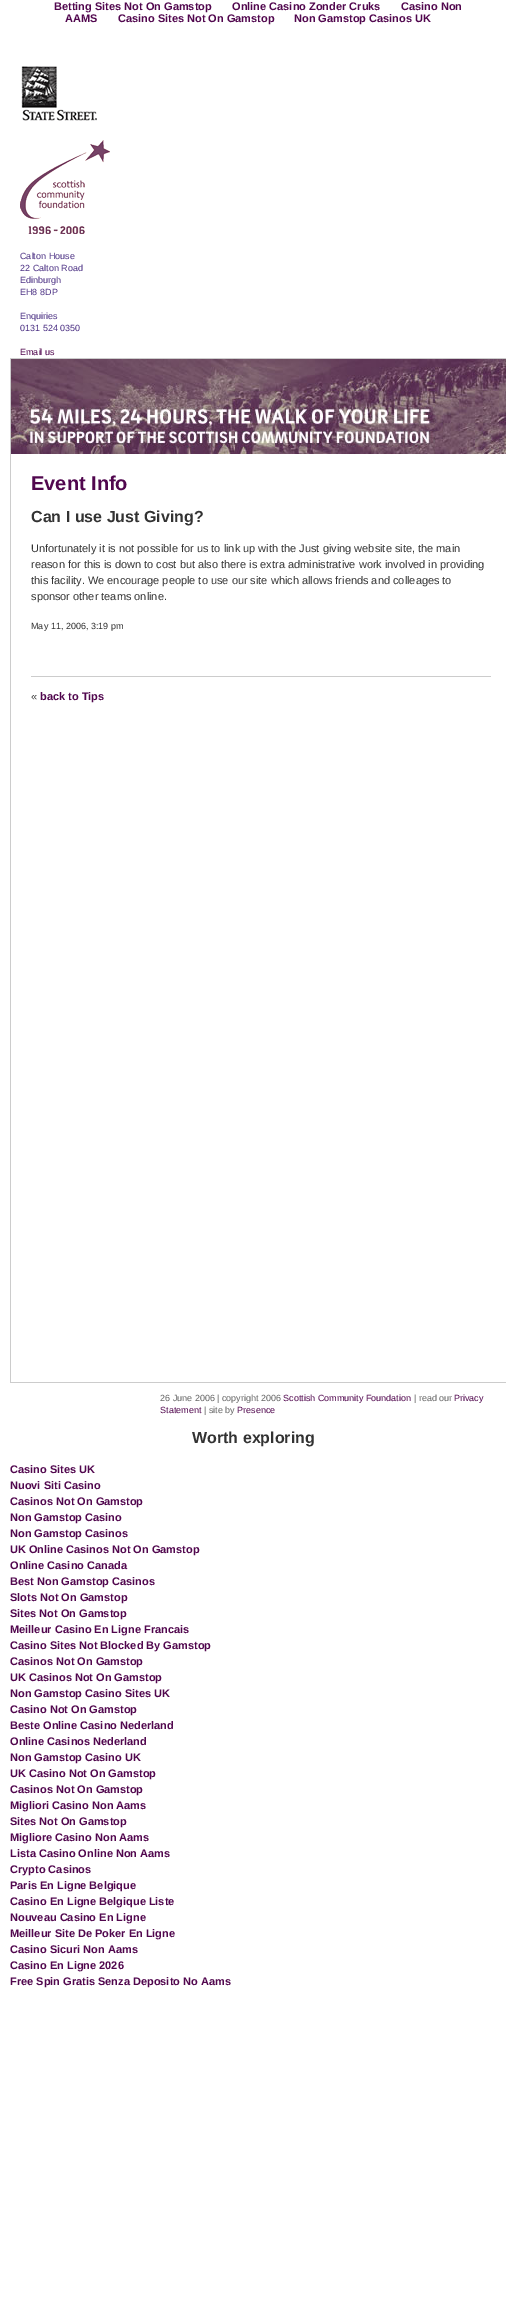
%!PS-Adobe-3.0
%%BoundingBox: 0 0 506 2323
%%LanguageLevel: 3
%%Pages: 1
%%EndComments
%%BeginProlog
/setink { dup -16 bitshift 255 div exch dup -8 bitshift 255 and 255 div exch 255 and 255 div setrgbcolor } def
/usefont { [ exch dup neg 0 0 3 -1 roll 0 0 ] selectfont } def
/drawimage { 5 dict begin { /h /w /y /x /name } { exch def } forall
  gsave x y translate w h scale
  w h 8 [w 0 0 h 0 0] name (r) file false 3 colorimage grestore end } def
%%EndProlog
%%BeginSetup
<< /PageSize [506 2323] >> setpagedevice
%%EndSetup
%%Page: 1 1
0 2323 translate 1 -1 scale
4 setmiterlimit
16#FFFFFF setink
0 0 506 2323 rectfill
/LiberationSans-Bold 11 usefont
16#51074E setink
[
    [(Betting Sites Not On Gamstop) 54 10]
    [(Online Casino Zonder Cruks) 232 10]
    [(Casino Non) 401 10]
    [(AAMS) 65 22]
    [(Casino Sites Not On Gamstop) 118 22]
    [(Non Gamstop Casinos UK) 294 22]
] { aload pop moveto show } forall
(img1.raw) 21 66 76 55 drawimage
(img2.raw) 20 140 90 94 drawimage
/LiberationSans-Regular 9 usefont
16#4D3285 setink
[
    [(Calton House) 20 259]
    [(22 Calton Road) 20 271]
    [(Edinburgh) 20 283]
    [(EH8 8DP) 20 295]
    [(Enquiries) 20 319]
    [(0131 524 0350) 20 331]
] { aload pop moveto show } forall
16#51074E setink
20 355 moveto (Email us) show
16#CCCCCC setink
10 358 496 1025 rectfill
16#FFFFFF setink
11 454 495 928 rectfill
(img3.raw) 11 359 495 95 drawimage
/LiberationSans-Bold 20 usefont
16#51074E setink
31 490 moveto (Event Info) show
/LiberationSans-Bold 16 usefont
16#333333 setink
31 522 moveto (Can I use Just Giving?) show
/LiberationSans-Regular 11 usefont
[
    [(Unfortunately it is not possible for us to link up with the Just giving website site, the main) 31 552]
    [(reason for this is down to cost but also there is extra administrative work involved in providing) 31 568]
    [(this facility. We encourage people to use our site which allows friends and colleages to) 31 584]
    [(sponsor other teams online.) 31 600]
] { aload pop moveto show } forall
/LiberationSans-Regular 9 usefont
31 629 moveto (May 11, 2006, 3:19 pm) show
16#CCCCCC setink
31 676 460 1 rectfill
/LiberationSans-Regular 11 usefont
16#333333 setink
31 700 moveto («) show
/LiberationSans-Bold 11 usefont
16#51074E setink
40 700 moveto (back to Tips) show
/LiberationSans-Regular 9 usefont
16#666666 setink
160 1401 moveto (26 June 2006 | copyright 2006) show
16#51074E setink
283 1401 moveto (Scottish Community Foundation) show
16#666666 setink
414 1401 moveto (| read our) show
16#51074E setink
454 1401 moveto (Privacy) show
160 1413 moveto (Statement) show
16#666666 setink
204 1413 moveto (| site by) show
16#51074E setink
237 1413 moveto (Presence) show
/LiberationSans-Bold 16 usefont
16#333333 setink
192 1443 moveto (Worth exploring) show
/LiberationSans-Bold 11 usefont
16#51074E setink
[
    [(Casino Sites UK) 10 1473]
    [(Nuovi Siti Casino) 10 1489]
    [(Casinos Not On Gamstop) 10 1505]
    [(Non Gamstop Casino) 10 1521]
    [(Non Gamstop Casinos) 10 1537]
    [(UK Online Casinos Not On Gamstop) 10 1553]
    [(Online Casino Canada) 10 1569]
    [(Best Non Gamstop Casinos) 10 1585]
    [(Slots Not On Gamstop) 10 1601]
    [(Sites Not On Gamstop) 10 1617]
    [(Meilleur Casino En Ligne Francais) 10 1633]
    [(Casino Sites Not Blocked By Gamstop) 10 1649]
    [(Casinos Not On Gamstop) 10 1665]
    [(UK Casinos Not On Gamstop) 10 1681]
    [(Non Gamstop Casino Sites UK) 10 1697]
    [(Casino Not On Gamstop) 10 1713]
    [(Beste Online Casino Nederland) 10 1729]
    [(Online Casinos Nederland) 10 1745]
    [(Non Gamstop Casino UK) 10 1761]
    [(UK Casino Not On Gamstop) 10 1777]
    [(Casinos Not On Gamstop) 10 1793]
    [(Migliori Casino Non Aams) 10 1809]
    [(Sites Not On Gamstop) 10 1825]
    [(Migliore Casino Non Aams) 10 1841]
    [(Lista Casino Online Non Aams) 10 1857]
    [(Crypto Casinos) 10 1873]
    [(Paris En Ligne Belgique) 10 1889]
    [(Casino En Ligne Belgique Liste) 10 1905]
    [(Nouveau Casino En Ligne) 10 1921]
    [(Meilleur Site De Poker En Ligne) 10 1937]
    [(Casino Sicuri Non Aams) 10 1953]
    [(Casino En Ligne 2026) 10 1969]
    [(Free Spin Gratis Senza Deposito No Aams) 10 1985]
] { aload pop moveto show } forall
showpage
%%EOF
